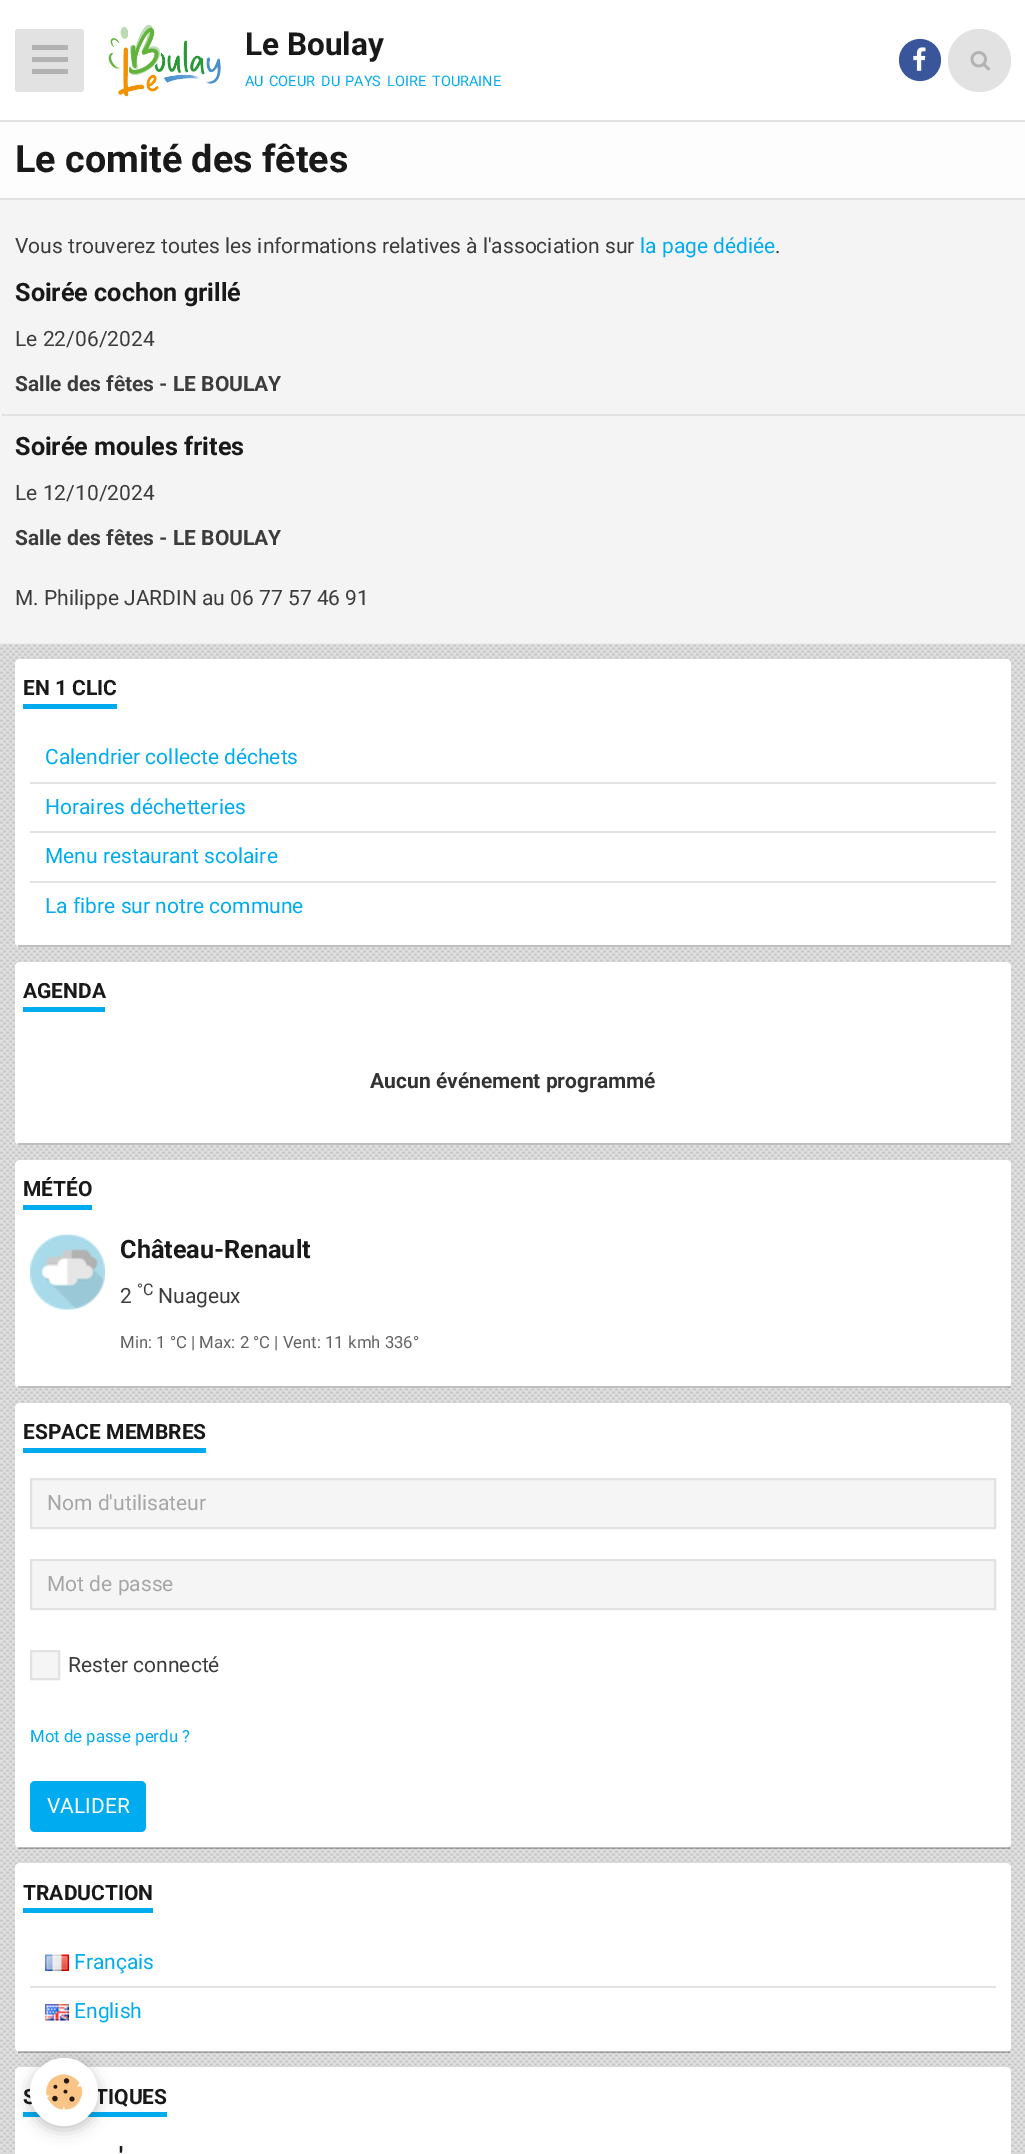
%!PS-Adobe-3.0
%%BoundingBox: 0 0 1025 2154
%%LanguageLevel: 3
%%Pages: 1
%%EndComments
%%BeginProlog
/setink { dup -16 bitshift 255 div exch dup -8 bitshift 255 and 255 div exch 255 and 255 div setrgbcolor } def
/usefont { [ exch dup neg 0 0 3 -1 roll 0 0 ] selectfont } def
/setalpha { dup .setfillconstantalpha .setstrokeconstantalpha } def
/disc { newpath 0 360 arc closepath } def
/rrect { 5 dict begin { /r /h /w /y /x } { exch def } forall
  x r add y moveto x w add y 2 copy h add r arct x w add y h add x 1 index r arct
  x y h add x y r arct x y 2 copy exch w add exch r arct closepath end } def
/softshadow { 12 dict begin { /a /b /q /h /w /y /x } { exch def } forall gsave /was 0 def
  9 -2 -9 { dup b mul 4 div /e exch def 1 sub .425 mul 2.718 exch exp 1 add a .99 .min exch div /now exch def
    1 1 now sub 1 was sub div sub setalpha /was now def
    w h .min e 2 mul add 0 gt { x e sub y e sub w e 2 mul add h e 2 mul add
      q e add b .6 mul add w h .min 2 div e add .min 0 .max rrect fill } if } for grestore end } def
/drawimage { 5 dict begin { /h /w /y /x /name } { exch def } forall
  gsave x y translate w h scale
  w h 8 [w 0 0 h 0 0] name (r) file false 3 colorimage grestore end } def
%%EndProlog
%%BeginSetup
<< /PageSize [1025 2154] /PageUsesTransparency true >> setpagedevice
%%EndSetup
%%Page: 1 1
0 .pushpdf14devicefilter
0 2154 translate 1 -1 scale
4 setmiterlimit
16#F4F4F4 setink
0 0 1025 2154 rectfill
16#FFFFFF setink
0 0 1025 120 rectfill
16#E2E2E2 setink
0 120 1025 2 rectfill
15 29 69 63 3 rrect fill
[
    [32 57 36 5 16#B2B2B2]
    [32 45 36 5 16#B2B2B2]
    [32 69 36 5 16#B2B2B2]
] { aload pop setink rectfill } forall
(img1.raw) 108 24 113 73 drawimage
/Roboto-Bold 31.5 usefont
16#191919 setink
245 55 moveto (Le Boulay) show
/Roboto-Regular 14.5 usefont
16#00ABF0 setink
[
    [(AU) 245 86]
    [(COEUR) 269 86]
    [(DU) 321 86]
    [(PAYS) 345 86]
    [(LOIRE) 387 86]
    [(TOURAINE) 432 86]
] { aload pop moveto show } forall
16#385699 setink
920 60 21 disc fill
(img2.raw) 913 47 13 24 drawimage
16#E2E2E2 setink
979.5 60.5 31.5 disc fill
(img3.raw) 970 51 20 20 drawimage
16#FDFDFD setink
0 122 1025 76 rectfill
16#E2E2E2 setink
0 198 1025 2 rectfill
/Roboto-Bold 37.75 usefont
16#191919 setink
15 172 moveto (Le comité des fêtes) show
/Roboto-Regular 21 usefont
16#3C3C3C setink
15 253 moveto (Vous trouverez toutes les informations relatives à l'association sur) show
16#00ABF0 setink
640 253 moveto (la page dédiée) show
16#3C3C3C setink
775 253 moveto (.) show
16#E2E2E2 setink
2 414 1023 2 rectfill
/Roboto-Bold 25.25 usefont
16#191919 setink
15 301 moveto (Soirée cochon grillé) show
/Roboto-Regular 21 usefont
16#3C3C3C setink
15 346 moveto (Le 22/06/2024) show
/Roboto-Bold 21 usefont
15 391 moveto (Salle des fêtes - LE BOULAY) show
/Roboto-Bold 25.25 usefont
16#191919 setink
15 455 moveto (Soirée moules frites) show
/Roboto-Regular 21 usefont
16#3C3C3C setink
15 500 moveto (Le 12/10/2024) show
/Roboto-Bold 21 usefont
15 545 moveto (Salle des fêtes - LE BOULAY) show
/Roboto-Regular 21 usefont
15 605 moveto (M. Philippe JARDIN au 06 77 57 46 91) show
16#E2E2E2 setink
0 644 1025 1510 rectfill
(img4.raw) 0 643 1025 1511 drawimage
16#FFFFFF setink
15 659 996 288 5 rrect fill
0.25 setalpha
16#000000 setink
18 945 992 2 rectfill
/Roboto-Bold 21 usefont
1 setalpha
16#191919 setink
23 695 moveto (EN 1 CLIC) show
16#00ABF0 setink
23 704 94 5 rectfill
16#E2E2E2 setink
30 782 966 2 rectfill
/Roboto-Regular 21 usefont
16#00ABF0 setink
45 764 moveto (Calendrier collecte déchets) show
16#E2E2E2 setink
30 831 966 2 rectfill
16#00ABF0 setink
45 814 moveto (Horaires déchetteries) show
16#E2E2E2 setink
30 881 966 2 rectfill
16#00ABF0 setink
45 863 moveto (Menu restaurant scolaire) show
45 913 moveto (La fibre sur notre commune) show
16#FFFFFF setink
15 962 996 183 5 rrect fill
0.25 setalpha
16#000000 setink
18 1143 992 2 rectfill
/Roboto-Bold 21 usefont
1 setalpha
16#191919 setink
23 998 moveto (AGENDA) show
16#00ABF0 setink
23 1007 82 5 rectfill
16#333333 setink
370 1088 moveto (Aucun événement programmé) show
16#FFFFFF setink
15 1160 996 228 5 rrect fill
0.25 setalpha
16#000000 setink
18 1386 992 2 rectfill
1 setalpha
16#191919 setink
23 1196 moveto (MÉTÉO) show
16#00ABF0 setink
23 1205 69 5 rectfill
(img5.raw) 30 1234 75 76 drawimage
/Roboto-Bold 25.25 usefont
16#191919 setink
120 1258 moveto (Château-Renault) show
/Roboto-Regular 21 usefont
16#3C3C3C setink
120 1303 moveto (2) show
/Roboto-Regular 16 usefont
137 1295 moveto (°C) show
/Roboto-Regular 21 usefont
158 1303 moveto (Nuageux) show
/Roboto-Regular 16.75 usefont
16#636363 setink
120 1348 moveto (Min: 1 °C | Max: 2 °C | Vent: 11 kmh 336°) show
16#FFFFFF setink
15 1403 996 445 5 rrect fill
0.25 setalpha
16#000000 setink
18 1847 992 2 rectfill
/Roboto-Bold 21 usefont
1 setalpha
16#191919 setink
23 1439 moveto (ESPACE MEMBRES) show
16#00ABF0 setink
23 1448 183 5 rectfill
16#F5F5F5 setink
31 1479 moveto 995 1479 lineto 995 1528 lineto 31 1528 lineto closepath gsave fill grestore
16#E2E2E2 setink
2 setlinewidth
stroke
/Roboto-Regular 21 usefont
16#A6A6A6 setink
47 1510 moveto (Nom d'utilisateur) show
16#F5F5F5 setink
31 1560 moveto 995 1560 lineto 995 1609 lineto 31 1609 lineto closepath gsave fill grestore
16#E2E2E2 setink
stroke
16#A6A6A6 setink
47 1591 moveto (Mot de passe) show
16#F5F5F5 setink
31 1651 moveto 59 1651 lineto 59 1679 lineto 31 1679 lineto closepath gsave fill grestore
16#E2E2E2 setink
stroke
16#3C3C3C setink
68 1672 moveto (Rester connecté) show
/Roboto-Regular 16.75 usefont
16#00ABF0 setink
30 1742 moveto (Mot de passe perdu ?) show
30 1781 116 51 5 rrect fill
/Roboto-Regular 21 usefont
16#FFFFFF setink
47 1813 moveto (VALIDER) show
15 1863 996 189 5 rrect fill
0.25 setalpha
16#000000 setink
18 2051 992 2 rectfill
/Roboto-Bold 21 usefont
1 setalpha
16#191919 setink
23 1900 moveto (TRADUCTION) show
16#00ABF0 setink
23 1908 130 5 rectfill
16#E2E2E2 setink
30 1986 966 2 rectfill
(img6.raw) 45 1954 24 17 drawimage
/Roboto-Regular 21 usefont
16#00ABF0 setink
74 1969 moveto (Français) show
(img7.raw) 45 2004 24 17 drawimage
74 2018 moveto (English) show
16#FFFFFF setink
15 2067 996 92 5 rrect fill
/Roboto-Bold 21 usefont
16#191919 setink
23 2104 moveto (S) show
95 2104 moveto (TIQUES) show
16#00ABF0 setink
23 2112 144 5 rectfill
/Roboto-Bold 25.25 usefont
16#191919 setink
119 2165 moveto (') show
16#000000 setink
30 2063 68 67 33.5 7.5 0.24 softshadow
16#FFFFFF setink
64 2092 34 disc fill
(img8.raw) 46 2074 37 36 drawimage
.poppdf14devicefilter showpage
%%EOF
